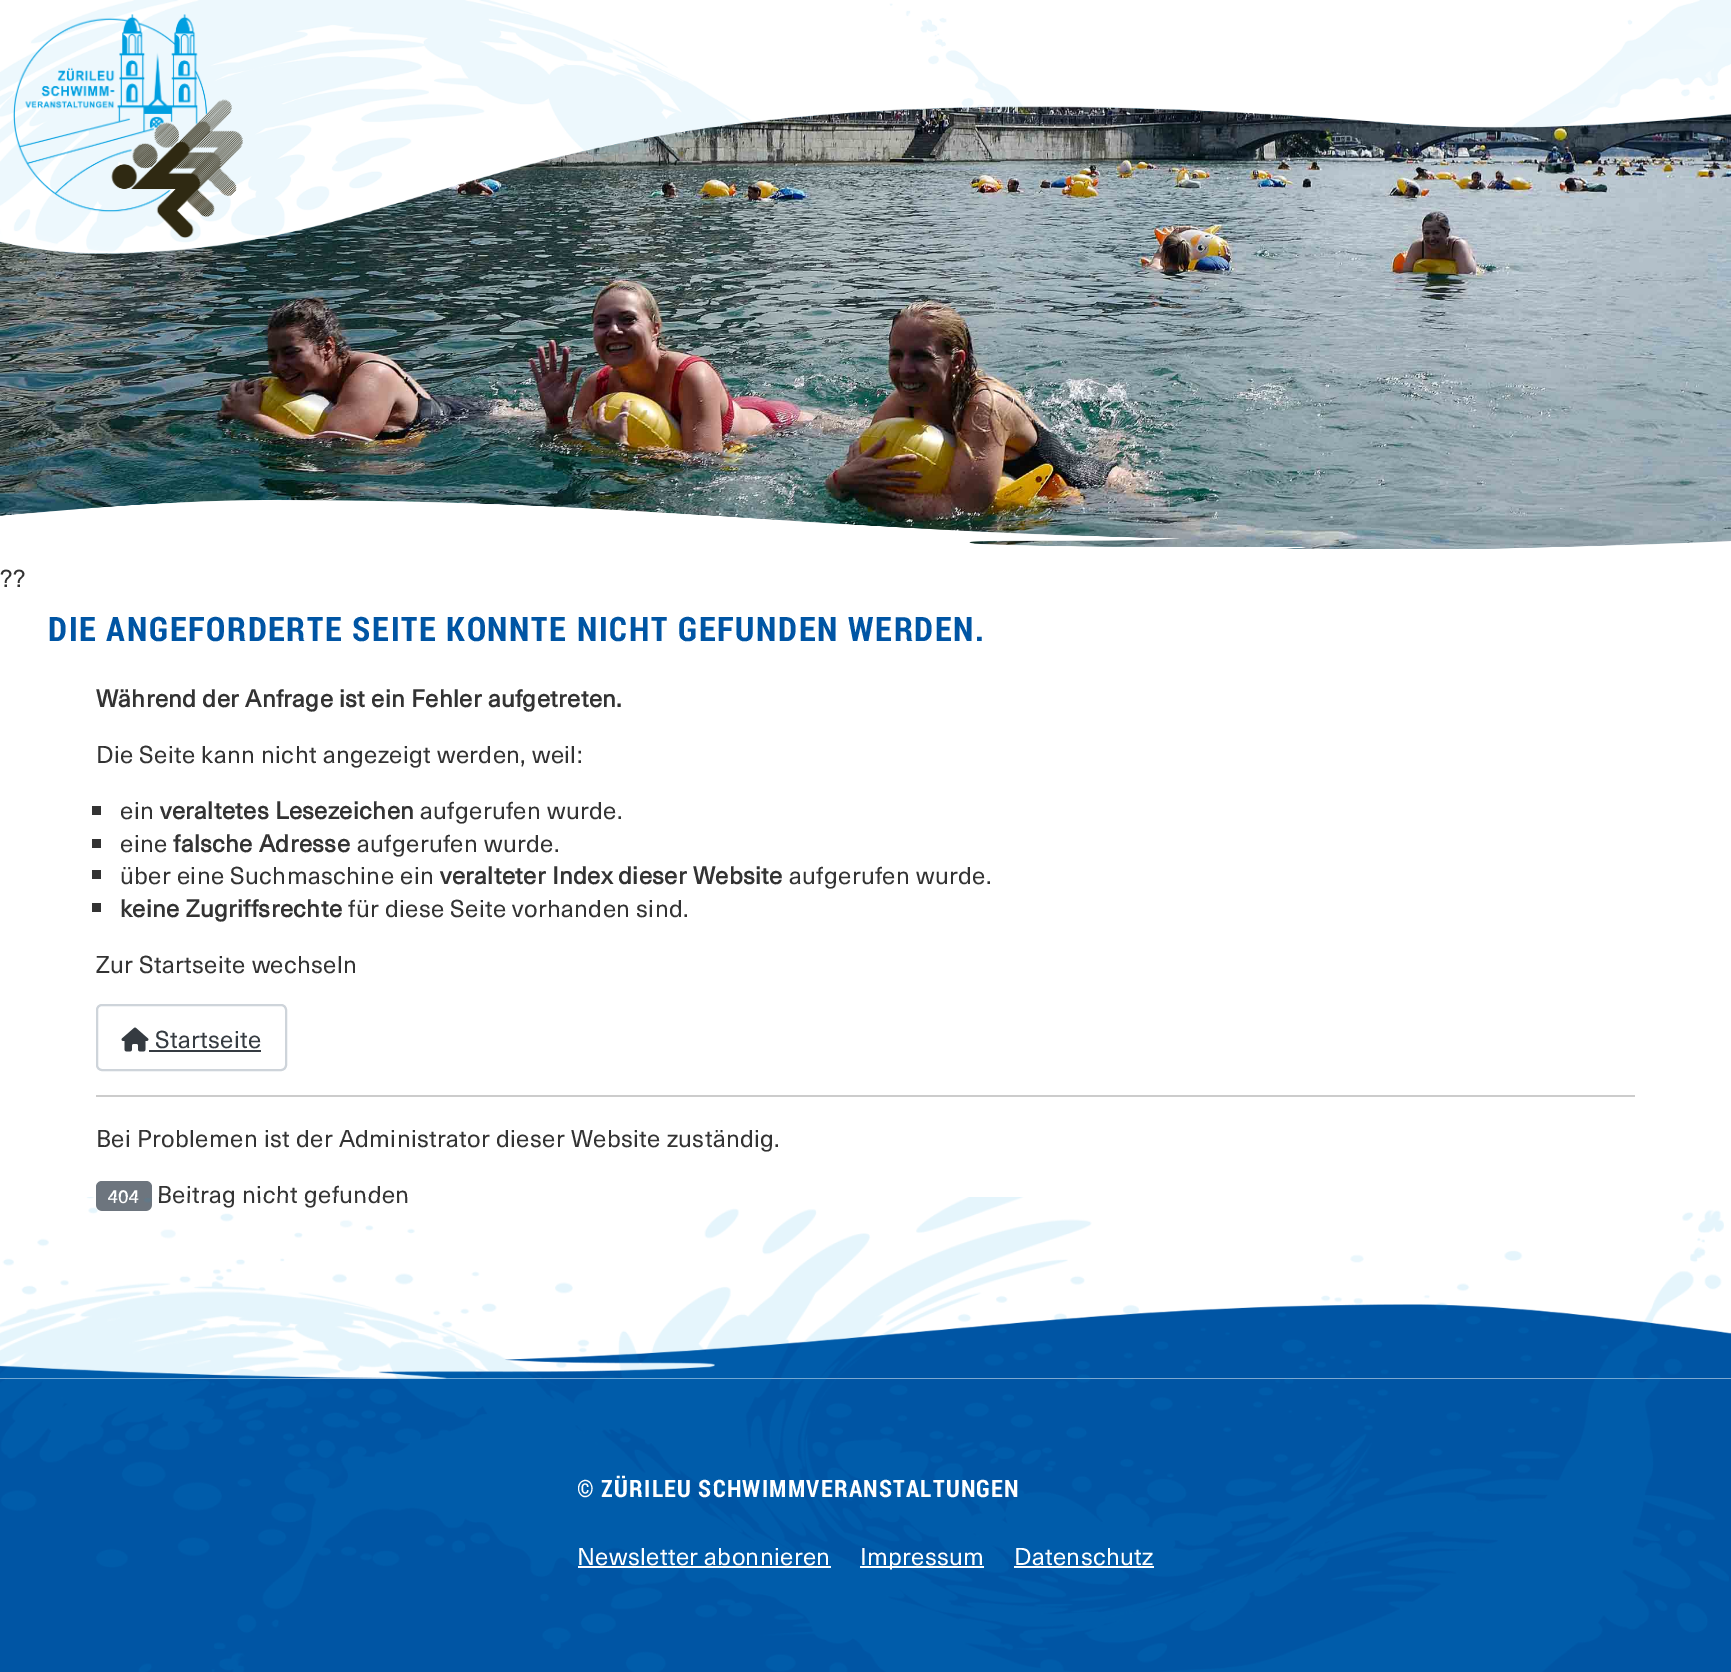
%!PS-Adobe-3.0
%%BoundingBox: 0 0 1731 1672
%%LanguageLevel: 3
%%Pages: 1
%%EndComments
%%BeginProlog
/setink { dup -16 bitshift 255 div exch dup -8 bitshift 255 and 255 div exch 255 and 255 div setrgbcolor } def
/usefont { [ exch dup neg 0 0 3 -1 roll 0 0 ] selectfont } def
/rrect { 5 dict begin { /r /h /w /y /x } { exch def } forall
  x r add y moveto x w add y 2 copy h add r arct x w add y h add x 1 index r arct
  x y h add x y r arct x y 2 copy exch w add exch r arct closepath end } def
/drawimage { 5 dict begin { /h /w /y /x /name } { exch def } forall
  gsave x y translate w h scale
  w h 8 [w 0 0 h 0 0] name (r) file false 3 colorimage grestore end } def
%%EndProlog
%%BeginSetup
<< /PageSize [1731 1672] >> setpagedevice
%%EndSetup
%%Page: 1 1
0 1672 translate 1 -1 scale
4 setmiterlimit
16#FFFFFF setink
0 0 1731 1672 rectfill
(img3.raw) 0 106 1731 443 drawimage
(img1.raw) 0 0 1731 254 drawimage
(img2.raw) 13 14 230 224 drawimage
(img4.raw) 0 500 1731 49 drawimage
/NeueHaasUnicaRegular-Regular 24 usefont
16#333333 setink
0 587 moveto 0.35 0 (??) ashow
/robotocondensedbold-Bold 33.6 usefont
16#0055A4 setink
48 641 moveto 1.68 0 (DIE ANGEFORDERTE SEITE KONNTE NICHT GEFUNDEN WERDEN.) ashow
/NeueHaasUnicaRegular-Bold 24 usefont
16#333333 setink
96 707 moveto 0.35 0 (Während der Anfrage ist ein Fehler aufgetreten.) ashow
/NeueHaasUnicaRegular-Regular 24 usefont
96 763 moveto 0.35 0 (Die Seite kann nicht angezeigt werden, weil:) ashow
92 806 9 9 rectfill
120 819 moveto 0.35 0 (ein) ashow
/NeueHaasUnicaRegular-Bold 24 usefont
160 819 moveto 0.35 0 (veraltetes Lesezeichen) ashow
/NeueHaasUnicaRegular-Regular 24 usefont
420 819 moveto 0.35 0 (aufgerufen wurde.) ashow
92 839 9 9 rectfill
120 852 moveto 0.35 0 (eine) ashow
/NeueHaasUnicaRegular-Bold 24 usefont
173 852 moveto 0.35 0 (falsche Adresse) ashow
/NeueHaasUnicaRegular-Regular 24 usefont
357 852 moveto 0.35 0 (aufgerufen wurde.) ashow
92 870 9 9 rectfill
120 884 moveto 0.35 0 (über eine Suchmaschine ein) ashow
/NeueHaasUnicaRegular-Bold 24 usefont
440 884 moveto 0.35 0 (veralteter Index dieser Website) ashow
/NeueHaasUnicaRegular-Regular 24 usefont
789 884 moveto 0.35 0 (aufgerufen wurde.) ashow
92 903 9 9 rectfill
/NeueHaasUnicaRegular-Bold 24 usefont
120 917 moveto 0.35 0 (keine Zugriffsrechte) ashow
/NeueHaasUnicaRegular-Regular 24 usefont
348 917 moveto 0.35 0 (für diese Seite vorhanden sind.) ashow
96 973 moveto 0.35 0 (Zur Startseite wechseln) ashow
16#CED4DA setink
2 setlinewidth
97 1005 189 65 5 rrect stroke
(img5.raw) 121 1027 28 25 drawimage
16#353B41 setink
155 1048 moveto 0.35 0 (Startseite) ashow
149 1050 112 2 rectfill
16#CCCCCC setink
96 1095 1539 2 rectfill
16#333333 setink
96 1147 moveto 0.35 0 (Bei Problemen ist der Administrator dieser Website zuständig.) ashow
16#6D757E setink
96 1181 56 30 6 rrect fill
/NeueHaasUnicaRegular-Bold 18 usefont
16#FFFFFF setink
108 1203 moveto 0.35 0 (404) ashow
/NeueHaasUnicaRegular-Regular 24 usefont
16#333333 setink
157 1203 moveto 0.35 0 (Beitrag nicht gefunden) ashow
16#0055A4 setink
0 1379 1731 293 rectfill
(img7.raw) 0 1304 1731 75 drawimage
(img6.raw) 0 1197 1729 475 drawimage
/robotocondensedbold-Bold 24 usefont
16#FFFFFF setink
577 1497 moveto 1.2 0 (© ZÜRILEU SCHWIMMVERANSTALTUNGEN) ashow
/NeueHaasUnicaRegular-Regular 24 usefont
577 1565 moveto 0.35 0 (Newsletter abonnieren) ashow
578 1566 253 2 rectfill
860 1566 124 2 rectfill
860 1565 moveto 0.35 0 (Impressum) ashow
1014 1565 moveto 0.35 0 (Datenschutz) ashow
1014 1566 140 2 rectfill
showpage
%%EOF
